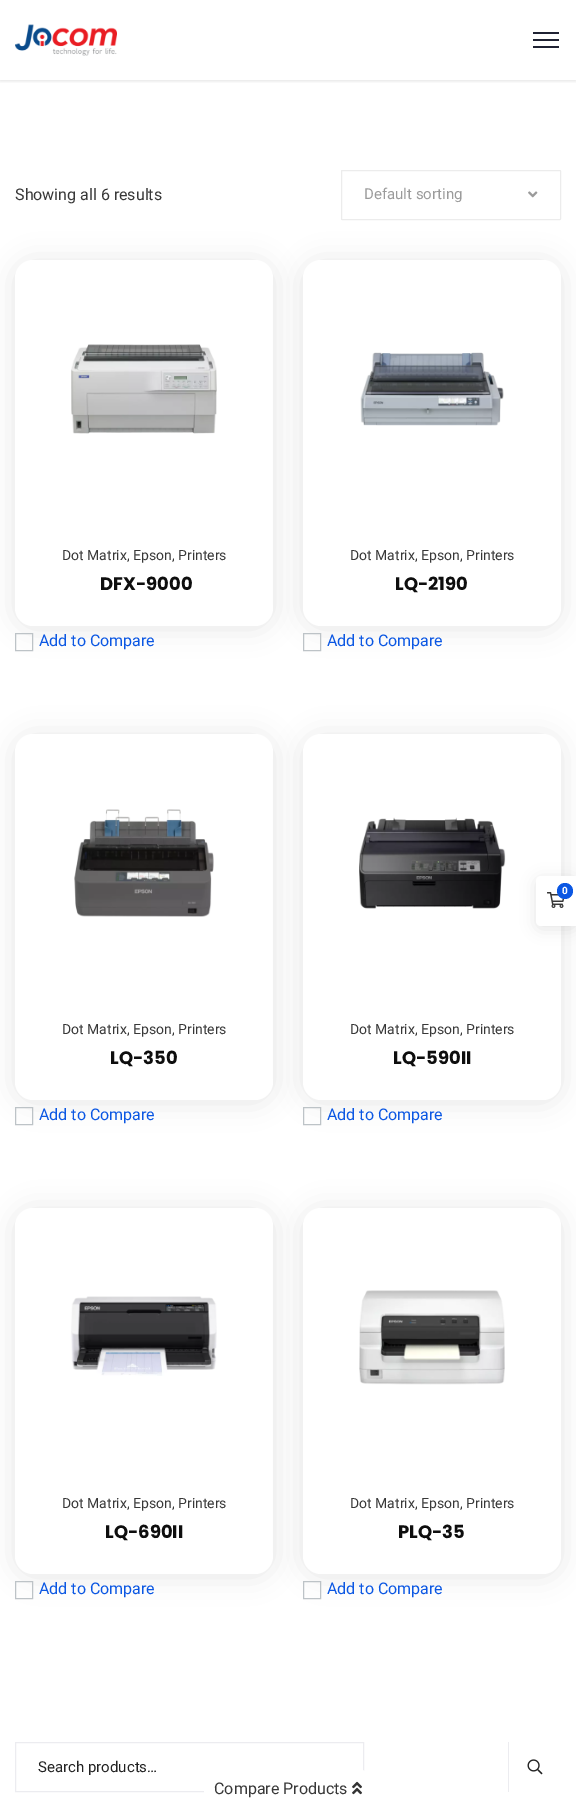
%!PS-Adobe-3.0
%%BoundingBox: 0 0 576 1801
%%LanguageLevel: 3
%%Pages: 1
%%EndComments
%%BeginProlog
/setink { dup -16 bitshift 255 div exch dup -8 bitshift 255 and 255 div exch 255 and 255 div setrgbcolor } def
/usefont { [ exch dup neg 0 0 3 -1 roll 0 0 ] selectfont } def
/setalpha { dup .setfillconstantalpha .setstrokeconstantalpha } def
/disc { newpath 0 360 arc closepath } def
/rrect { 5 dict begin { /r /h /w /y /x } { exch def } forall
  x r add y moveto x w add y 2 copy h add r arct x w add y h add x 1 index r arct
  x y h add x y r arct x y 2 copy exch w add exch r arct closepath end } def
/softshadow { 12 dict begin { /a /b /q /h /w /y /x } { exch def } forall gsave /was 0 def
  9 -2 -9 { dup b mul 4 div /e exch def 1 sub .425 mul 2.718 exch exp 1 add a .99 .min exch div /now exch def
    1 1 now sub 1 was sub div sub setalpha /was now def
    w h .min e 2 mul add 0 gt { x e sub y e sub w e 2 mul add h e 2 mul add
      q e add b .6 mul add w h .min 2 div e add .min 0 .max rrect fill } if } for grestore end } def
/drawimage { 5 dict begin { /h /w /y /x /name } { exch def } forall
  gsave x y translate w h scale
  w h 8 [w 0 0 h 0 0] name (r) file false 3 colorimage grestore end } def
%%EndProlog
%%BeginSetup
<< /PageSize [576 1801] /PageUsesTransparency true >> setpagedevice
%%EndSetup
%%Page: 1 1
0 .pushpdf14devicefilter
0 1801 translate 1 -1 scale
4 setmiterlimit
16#FFFFFF setink
0 0 576 1801 rectfill
gsave
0 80 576 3 rectclip
16#000000 setink
0 0 576 80 0 2.5 0.15 softshadow
grestore
(img1.raw) 15 24 102 32 drawimage
[
    [533 32 26 2 16#1F2233]
    [533 39 26 2 16#1F2233]
    [533 46 26 2 16#1F2233]
] { aload pop setink rectfill } forall
/Roboto-Regular 16 usefont
16#383838 setink
15 200 moveto (Showing all 6 results) show
16#ECECEC setink
341.5 170.5 219 49 0.5 rrect stroke
/Roboto-Regular 15 usefont
16#9B9B9B setink
364 199 moveto (Default sorting) show
(img2.raw) 528 191 10 7 drawimage
16#363636 setink
15 262 258 366 18 13.5 0.13 softshadow
16#FFFFFF setink
15 260 258 366 18 rrect fill
(img3.raw) 71 344 146 90 drawimage
/Roboto-Regular 14 usefont
16#383838 setink
62 560 moveto (Dot Matrix, Epson, Printers) show
/Poppins-Bold 18 usefont
16#0E0E0E setink
100 590 moveto (DFX-9000) show
16#BDC3C7 setink
15.5 633.5 17 17 rectstroke
/Roboto-Regular 16 usefont
16#0B57E3 setink
39 646 moveto (Add to Compare) show
16#363636 setink
303 262 258 366 18 13.5 0.13 softshadow
16#FFFFFF setink
303 260 258 366 18 rrect fill
(img4.raw) 360 352 144 74 drawimage
/Roboto-Regular 14 usefont
16#383838 setink
350 560 moveto (Dot Matrix, Epson, Printers) show
/Poppins-Bold 18 usefont
16#0E0E0E setink
395 590 moveto (LQ-2190) show
16#BDC3C7 setink
303.5 633.5 17 17 rectstroke
/Roboto-Regular 16 usefont
16#0B57E3 setink
327 646 moveto (Add to Compare) show
16#363636 setink
15 736 258 366 18 13.5 0.13 softshadow
16#FFFFFF setink
15 734 258 366 18 rrect fill
(img5.raw) 74 809 140 108 drawimage
/Roboto-Regular 14 usefont
16#383838 setink
62 1034 moveto (Dot Matrix, Epson, Printers) show
/Poppins-Bold 18 usefont
16#0E0E0E setink
110 1064 moveto (LQ-350) show
16#BDC3C7 setink
15.5 1107.5 17 17 rectstroke
/Roboto-Regular 16 usefont
16#0B57E3 setink
39 1120 moveto (Add to Compare) show
16#363636 setink
303 736 258 366 18 13.5 0.13 softshadow
16#FFFFFF setink
303 734 258 366 18 rrect fill
(img6.raw) 359 817 147 92 drawimage
/Roboto-Regular 14 usefont
16#383838 setink
350 1034 moveto (Dot Matrix, Epson, Printers) show
/Poppins-Bold 18 usefont
16#0E0E0E setink
393 1064 moveto (LQ-590II) show
16#BDC3C7 setink
303.5 1107.5 17 17 rectstroke
/Roboto-Regular 16 usefont
16#0B57E3 setink
327 1120 moveto (Add to Compare) show
16#363636 setink
15 1210 258 366 18 13.5 0.13 softshadow
16#FFFFFF setink
15 1208 258 366 18 rrect fill
(img7.raw) 71 1296 146 80 drawimage
/Roboto-Regular 14 usefont
16#383838 setink
62 1508 moveto (Dot Matrix, Epson, Printers) show
/Poppins-Bold 18 usefont
16#0E0E0E setink
105 1538 moveto (LQ-690II) show
16#BDC3C7 setink
15.5 1581.5 17 17 rectstroke
/Roboto-Regular 16 usefont
16#0B57E3 setink
39 1594 moveto (Add to Compare) show
16#363636 setink
303 1210 258 366 18 13.5 0.13 softshadow
16#FFFFFF setink
303 1208 258 366 18 rrect fill
(img8.raw) 359 1290 146 95 drawimage
/Roboto-Regular 14 usefont
16#383838 setink
350 1508 moveto (Dot Matrix, Epson, Printers) show
/Poppins-Bold 18 usefont
16#0E0E0E setink
398 1538 moveto (PLQ-35) show
16#BDC3C7 setink
303.5 1581.5 17 17 rectstroke
/Roboto-Regular 16 usefont
16#0B57E3 setink
327 1594 moveto (Add to Compare) show
16#ECECF0 setink
15.5 1742.5 348 49 rectstroke
/Roboto-Regular 15 usefont
16#222222 setink
38 1772 moveto (Search products…) show
16#ECECF0 setink
508 1742 1 50 rectfill
(img9.raw) 527 1759 16 16 drawimage
16#000000 setink
536 879 40 50 5 7.5 0.1 softshadow
16#FFFFFF setink
541 876 moveto 576 876 lineto 576 926 lineto 541 926 lineto 538 926 536 924 536 921 curveto 536 881 lineto 536 878 538 876 541 876 curveto closepath fill
(img10.raw) 547 892 18 16 drawimage
16#0B57E3 setink
565 891 8 disc fill
/Roboto-Bold 10 usefont
16#FFFFFF setink
562 894 moveto (0) show
0.98 setalpha
219 1769 moveto 357 1769 lineto 365.5 1769 372 1775.5 372 1784 curveto 372 1801 lineto 204 1801 lineto 204 1784 lineto 204 1775.5 210.5 1769 219 1769 curveto closepath fill
/Roboto-Regular 16 usefont
1 setalpha
16#383838 setink
214 1794 moveto (Compare Products) show
(img11.raw) 352 1781 10 14 drawimage
.poppdf14devicefilter showpage
%%EOF
